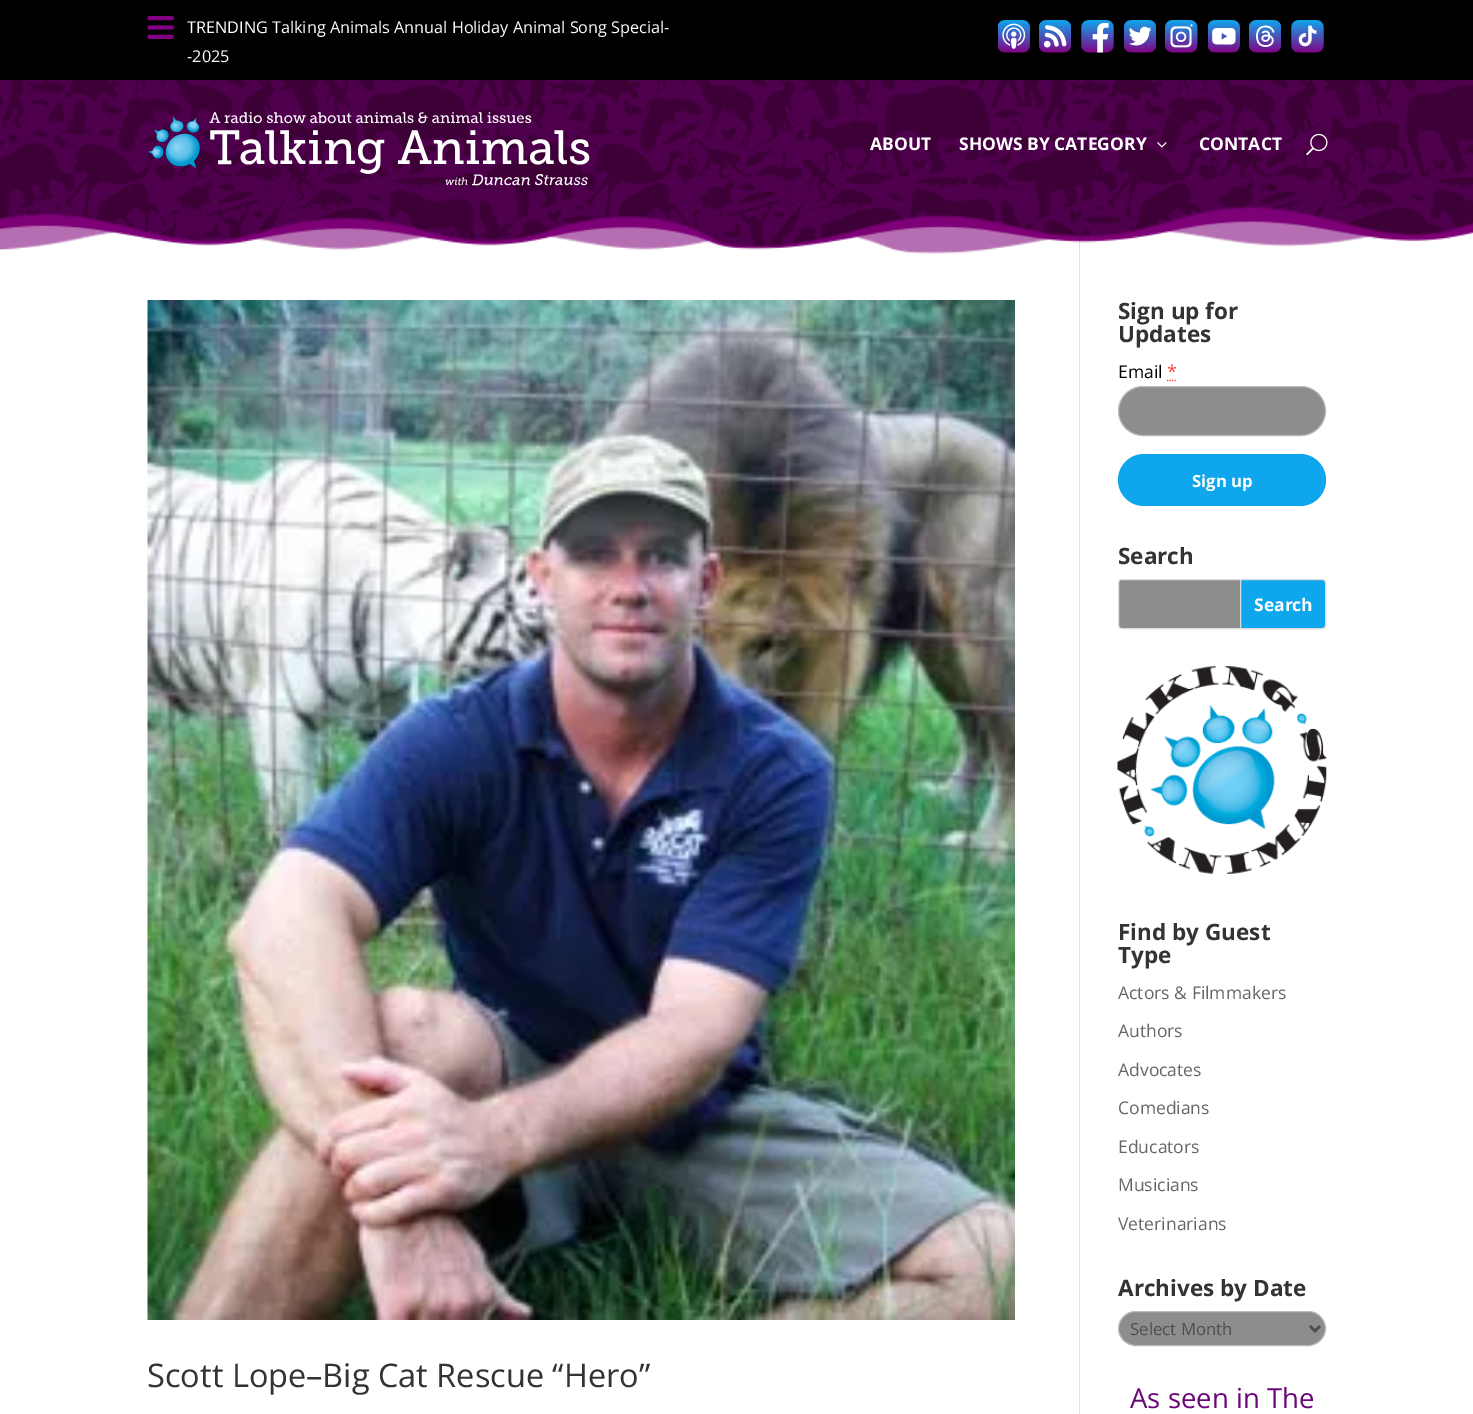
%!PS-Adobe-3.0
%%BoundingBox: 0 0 1473 1414
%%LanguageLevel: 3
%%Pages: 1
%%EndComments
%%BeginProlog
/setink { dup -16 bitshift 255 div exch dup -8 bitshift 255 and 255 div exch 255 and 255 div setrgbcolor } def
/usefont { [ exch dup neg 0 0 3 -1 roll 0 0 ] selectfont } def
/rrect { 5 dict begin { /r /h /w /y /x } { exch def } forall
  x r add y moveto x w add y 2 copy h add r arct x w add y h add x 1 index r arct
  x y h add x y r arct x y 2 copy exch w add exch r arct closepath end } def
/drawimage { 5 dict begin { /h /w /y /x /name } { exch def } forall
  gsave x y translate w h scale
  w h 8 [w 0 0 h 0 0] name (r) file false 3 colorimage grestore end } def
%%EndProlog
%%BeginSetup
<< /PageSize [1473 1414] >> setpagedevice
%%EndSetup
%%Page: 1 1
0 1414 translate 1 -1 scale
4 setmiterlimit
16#FFFFFF setink
0 0 1473 1414 rectfill
16#000000 setink
0 0 1473 80 rectfill
(img1.raw) 147 16 27 23 drawimage
/OpenSans-Regular 16.25 usefont
16#FFFFFF setink
187 33 moveto (TRENDING Talking Animals Annual Holiday Animal Song Special-) show
187 62 moveto (-2025) show
(img2.raw) 998 20 32 33 drawimage
(img3.raw) 1039 20 32 33 drawimage
(img4.raw) 1081 20 33 33 drawimage
(img5.raw) 1124 20 32 33 drawimage
(img6.raw) 1165 20 33 33 drawimage
(img7.raw) 1208 20 32 33 drawimage
(img8.raw) 1249 20 32 33 drawimage
(img9.raw) 1291 20 33 33 drawimage
16#E2E2E2 setink
1079 240 1 1174 rectfill
(img10.raw) 0 80 1473 174 drawimage
(img11.raw) 148 112 442 74 drawimage
/OpenSans-Bold 17.5 usefont
16#FFFFFF setink
870 150 moveto (ABOUT) show
959 150 moveto (SHOWS BY CATEGORY) show
(img12.raw) 1157 142 10 6 drawimage
1199 150 moveto (CONTACT) show
(img13.raw) 1306 133 22 23 drawimage
(img14.raw) 147 300 868 1020 drawimage
/OpenSans-Regular 32.5 usefont
16#333333 setink
147 1387 moveto (Scott Lope–Big Cat Rescue “Hero”) show
/OpenSans-Bold 22.5 usefont
1118 319 moveto (Sign up for) show
1118 342 moveto (Updates) show
/OpenSans-Regular 17.5 usefont
16#000000 setink
1118 378 moveto (Email) show
/OpenSans-Regular 18 usefont
16#FF4136 setink
1167 378 moveto (*) show
1.2 setlinewidth
[1.25 1.25] 0 setdash
1167 380.5 moveto 1176.5 380.5 lineto stroke
16#8D8D8D setink
1118.5 386.5 207 49 24.5 rrect gsave fill grestore
16#BBBBBB setink
1 setlinewidth
[] 0 setdash
stroke
16#0EA6ED setink
1118 454 208 52 26 rrect fill
/OpenSans-Bold 16.75 usefont
16#FFFFFF setink
1192 487 moveto (Sign up) show
/OpenSans-Bold 22.5 usefont
16#333333 setink
1118 564 moveto (Search) show
16#8D8D8D setink
1118.5 579.5 207 49 3.5 rrect gsave fill grestore
16#DDDDDD setink
stroke
16#0EA6ED setink
1240.5 579.5 moveto 1322 579.5 lineto 1324 579.5 1325.5 581 1325.5 583 curveto 1325.5 625 lineto 1325.5 627 1324 628.5 1322 628.5 curveto 1240.5 628.5 lineto closepath gsave fill grestore
16#DDDDDD setink
stroke
/OpenSans-Bold 17.5 usefont
16#FFFFFF setink
1254 611 moveto (Search) show
(img15.raw) 1117 666 210 208 drawimage
/OpenSans-Bold 22.5 usefont
16#333333 setink
1118 940 moveto (Find by Guest) show
1118 963 moveto (Type) show
/OpenSans-Regular 17.5 usefont
16#666666 setink
[
    [(Actors & Filmmakers) 1118 999]
    [(Authors) 1118 1037]
    [(Advocates) 1118 1076]
    [(Comedians) 1118 1114]
    [(Educators) 1118 1153]
    [(Musicians) 1118 1191]
    [(Veterinarians) 1118 1230]
] { aload pop moveto show } forall
/OpenSans-Bold 22.5 usefont
16#333333 setink
1118 1296 moveto (Archives by Date) show
16#8D8D8D setink
1118.5 1311.5 207 34 17 rrect gsave fill grestore
16#BBBBBB setink
stroke
16#4E4E4E setink
2.5 setlinewidth
1310 1326 moveto 1315 1331 lineto 1320 1326 lineto stroke
/OpenSans-Regular 16.75 usefont
1130 1335 moveto (Select Month) show
/OpenSans-Regular 27.5 usefont
16#6C067A setink
1130 1408 moveto (As seen in The) show
showpage
%%EOF
